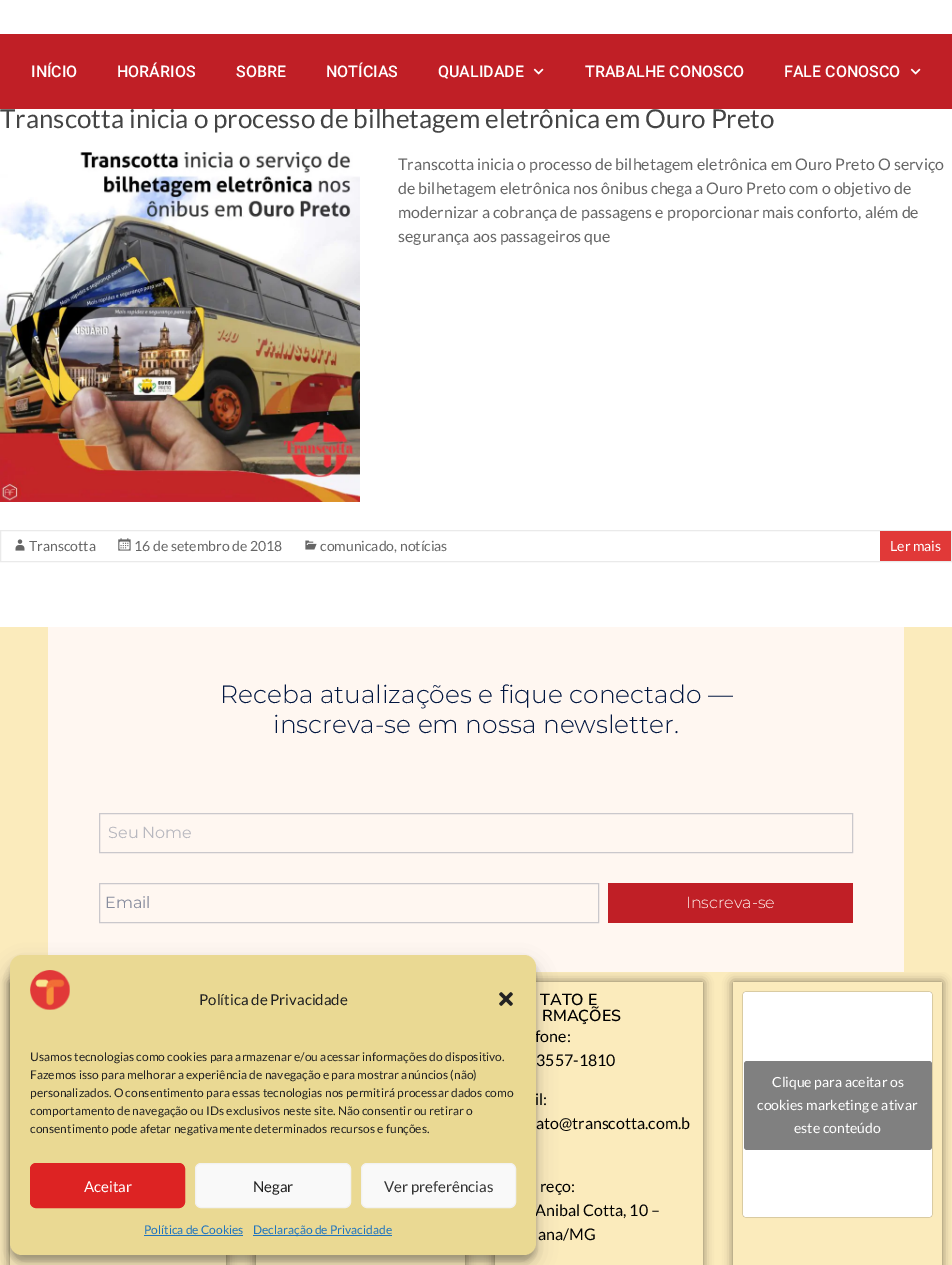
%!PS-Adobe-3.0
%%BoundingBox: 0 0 952 1265
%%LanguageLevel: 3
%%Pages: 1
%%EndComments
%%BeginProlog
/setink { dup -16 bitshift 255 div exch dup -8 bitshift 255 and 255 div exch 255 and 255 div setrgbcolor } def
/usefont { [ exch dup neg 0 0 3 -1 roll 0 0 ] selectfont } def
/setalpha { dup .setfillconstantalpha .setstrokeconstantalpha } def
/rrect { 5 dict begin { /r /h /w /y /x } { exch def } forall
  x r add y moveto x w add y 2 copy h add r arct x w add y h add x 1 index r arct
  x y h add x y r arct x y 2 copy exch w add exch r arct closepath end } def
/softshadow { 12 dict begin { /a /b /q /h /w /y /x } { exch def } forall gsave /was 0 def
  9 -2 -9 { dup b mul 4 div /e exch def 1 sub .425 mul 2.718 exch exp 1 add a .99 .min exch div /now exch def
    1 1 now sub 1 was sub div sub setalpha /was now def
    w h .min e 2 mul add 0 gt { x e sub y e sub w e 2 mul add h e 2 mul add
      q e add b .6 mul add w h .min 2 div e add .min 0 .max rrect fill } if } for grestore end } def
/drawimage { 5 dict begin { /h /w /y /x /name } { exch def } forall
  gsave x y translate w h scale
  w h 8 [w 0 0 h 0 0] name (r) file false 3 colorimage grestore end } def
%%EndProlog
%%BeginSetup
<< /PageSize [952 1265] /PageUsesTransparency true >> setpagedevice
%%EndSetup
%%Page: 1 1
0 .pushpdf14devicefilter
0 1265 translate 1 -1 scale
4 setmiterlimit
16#FFFFFF setink
0 0 952 1265 rectfill
/Lato-Regular 26 usefont
16#444444 setink
0 128 moveto (Transcotta inicia o processo de bilhetagem eletrônica em Ouro Preto) show
16#C01F26 setink
0 34 952 75 rectfill
/Roboto-Medium 16 usefont
16#FFFFFF setink
[
    [(INÍCIO) 31 77]
    [(HORÁRIOS) 117 77]
    [(SOBRE) 236 77]
    [(NOTÍCIAS) 326 77]
    [(QUALIDADE) 438 77]
] { aload pop moveto show } forall
(img1.raw) 533 68 11 7 drawimage
585 77 moveto (TRABALHE CONOSCO) show
784 77 moveto (FALE CONOSCO) show
(img1.raw) 910 68 11 7 drawimage
(img2.raw) 0 152 360 350 drawimage
/Lato-Regular 16 usefont
16#666666 setink
[
    [(Transcotta inicia o processo de bilhetagem eletrônica em Ouro Preto O serviço) 398 170]
    [(de bilhetagem eletrônica nos ônibus chega a Ouro Preto com o objetivo de) 398 194]
    [(modernizar a cobrança de passagens e proporcionar mais conforto, além de) 398 218]
    [(segurança aos passageiros que) 398 242]
] { aload pop moveto show } forall
16#EAEAEA setink
0.5 530.5 951 31 rectstroke
(img3.raw) 15 539 10 12 drawimage
/Lato-Regular 14 usefont
16#666666 setink
29 551 moveto (Transcotta) show
(img4.raw) 118 538 13 13 drawimage
134 551 moveto (16 de setembro de 2018) show
(img5.raw) 305 540 12 10 drawimage
320 551 moveto (comunicado, notícias) show
16#E13938 setink
880 531 71 30 rectfill
16#FFFFFF setink
890 551 moveto (Ler mais) show
16#FBEBBC setink
0 972 952 293 rectfill
gsave
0 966 moveto 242 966 lineto 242 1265 lineto 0 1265 lineto closepath 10 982 moveto 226 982 lineto 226 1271 lineto 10 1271 lineto closepath eoclip newpath
16#000000 setink
10 982 216 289 0 5 0.5 softshadow
grestore
gsave
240 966 moveto 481 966 lineto 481 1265 lineto 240 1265 lineto closepath 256 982 moveto 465 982 lineto 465 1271 lineto 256 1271 lineto closepath eoclip newpath
16#000000 setink
256 982 209 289 0 5 0.5 softshadow
grestore
gsave
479 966 moveto 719 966 lineto 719 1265 lineto 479 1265 lineto closepath 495 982 moveto 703 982 lineto 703 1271 lineto 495 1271 lineto closepath eoclip newpath
16#000000 setink
495 982 208 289 0 5 0.5 softshadow
grestore
gsave
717 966 moveto 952 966 lineto 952 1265 lineto 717 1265 lineto closepath 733 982 moveto 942 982 lineto 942 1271 lineto 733 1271 lineto closepath eoclip newpath
16#000000 setink
733 982 209 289 0 5 0.5 softshadow
grestore
0 627 952 345 rectfill
16#FFF7F1 setink
48 627 856 345 rectfill
/Montserrat-Light 25 usefont
16#011640 setink
220 703 moveto (Receba atualizações e fique conectado —) show
273 733 moveto (inscreva-se em nossa newsletter.) show
16#CAC8CC setink
99.5 813.5 753 39 rectstroke
/Montserrat-Regular 16 usefont
16#B8B8BF setink
108 838 moveto (Seu Nome) show
16#CAC8CC setink
99.5 883.5 499 39 rectstroke
16#888D9E setink
105 908 moveto (Email) show
16#C01F26 setink
608 883 245 40 rectfill
/Montserrat-Light 16 usefont
16#FFF7F1 setink
686 908 moveto (Inscreva-se) show
/NunitoSans-SemiBold 16 usefont
16#000000 setink
540 1005 moveto (TATO E) show
542 1021 moveto (RMAÇÕES) show
/Lato-Regular 16 usefont
[
    [(fone:) 535 1042]
    [(3557-1810) 536 1066]
    [(il:) 535 1105]
    [(ato@transcotta.com.b) 536 1129]
    [(reço:) 540 1192]
    [(Anibal Cotta, 10 –) 535 1216]
    [(ana/MG) 538 1240]
] { aload pop moveto show } forall
gsave
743 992 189 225 rectclip
743 993 189 225 3 5 0.15 softshadow
grestore
743 992 189 225 3 0.5 0.5 softshadow
16#FFFFFF setink
743 992 189 225 3 rrect fill
16#808080 setink
744 1061 188 89 3 rrect fill
/Lato-Regular 14 usefont
16#FFFFFF setink
[
    [(Clique para aceitar os) 772 1087]
    [(cookies marketing e ativar) 757 1110]
    [(este conteúdo) 794 1133]
] { aload pop moveto show } forall
16#000000 setink
10 961 526 300 12 3 0.23 softshadow
10 965 526 300 12 10 0.19 softshadow
16#EAD993 setink
10 955 526 300 12 rrect fill
(img6.raw) 30 970 40 40 drawimage
/Lato-Regular 15 usefont
16#222222 setink
199 1005 moveto (Política de Privacidade) show
(img7.raw) 499 992 14 14 drawimage
/Lato-Regular 12 usefont
[
    [(Usamos tecnologias como cookies para armazenar e/ou acessar informações do dispositivo.) 30 1061]
    [(Fazemos isso para melhorar a experiência de navegação e para mostrar anúncios \(não\)) 30 1079]
    [(personalizados. O consentimento para essas tecnologias nos permitirá processar dados como) 30 1097]
    [(comportamento de navegação ou IDs exclusivos neste site. Não consentir ou retirar o) 30 1115]
    [(consentimento pode afetar negativamente determinados recursos e funções.) 30 1133]
] { aload pop moveto show } forall
16#DD2323 setink
30.5 1163.5 154 44 5.5 rrect gsave fill grestore
stroke
/Lato-Regular 15 usefont
16#FFFFFF setink
84 1192 moveto (Aceitar) show
16#F9F9F9 setink
195.5 1163.5 155 44 5.5 rrect gsave fill grestore
16#F2F2F2 setink
stroke
16#222222 setink
253 1192 moveto (Negar) show
16#F9F9F9 setink
361.5 1163.5 154 44 5.5 rrect gsave fill grestore
16#F2F2F2 setink
stroke
16#333333 setink
384 1192 moveto (Ver preferências) show
/Lato-Regular 12 usefont
16#1E73BE setink
144 1234 moveto (Política de Cookies) show
144 1235 99 1 rectfill
253 1235 139 1 rectfill
253 1234 moveto (Declaração de Privacidade) show
.poppdf14devicefilter showpage
%%EOF
